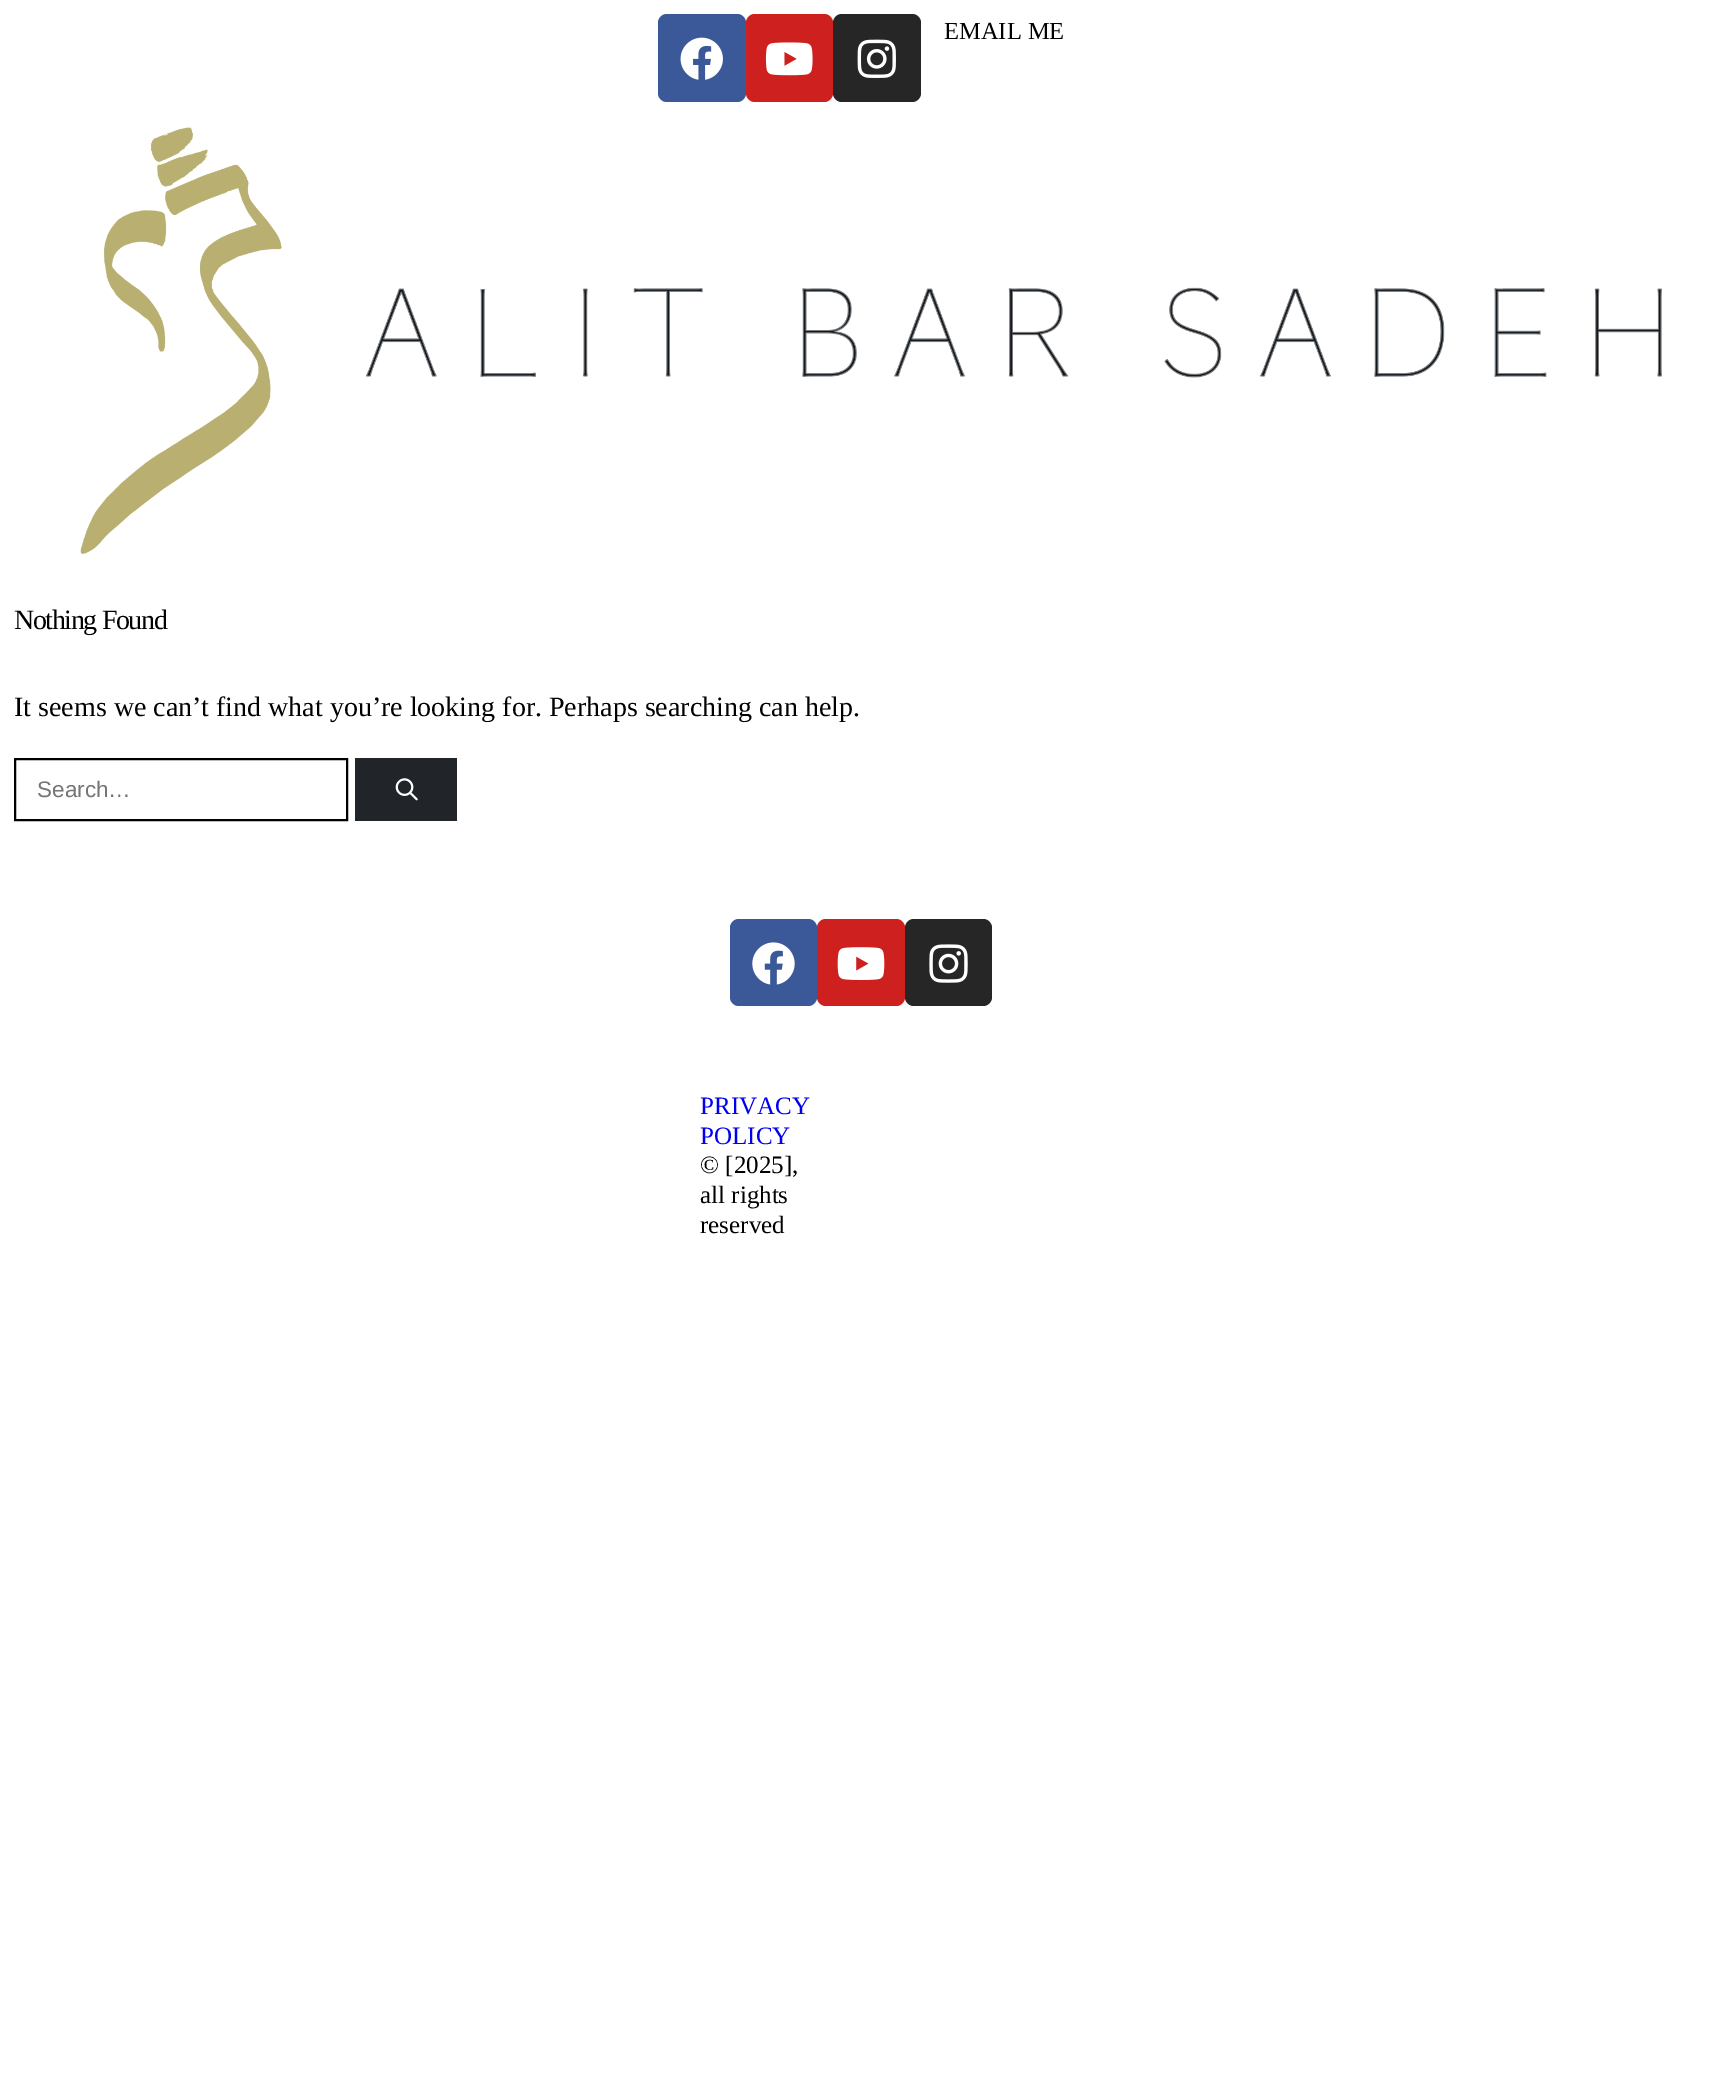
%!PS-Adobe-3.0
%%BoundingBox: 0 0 1722 2085
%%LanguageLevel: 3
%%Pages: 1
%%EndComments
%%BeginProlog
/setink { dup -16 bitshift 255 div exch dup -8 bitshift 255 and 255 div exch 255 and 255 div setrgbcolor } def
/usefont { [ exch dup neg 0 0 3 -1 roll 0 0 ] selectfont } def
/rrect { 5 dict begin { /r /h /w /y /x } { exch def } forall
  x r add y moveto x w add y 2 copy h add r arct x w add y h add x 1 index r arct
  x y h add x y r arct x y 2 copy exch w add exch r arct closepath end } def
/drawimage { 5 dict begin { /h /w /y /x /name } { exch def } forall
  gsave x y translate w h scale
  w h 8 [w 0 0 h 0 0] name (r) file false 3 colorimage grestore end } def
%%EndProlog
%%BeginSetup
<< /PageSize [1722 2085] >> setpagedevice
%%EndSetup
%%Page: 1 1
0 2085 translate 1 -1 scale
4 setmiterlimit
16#FFFFFF setink
0 0 1722 2085 rectfill
16#3B5998 setink
658 14 88 88 9 rrect fill
(img1.raw) 680 37 43 43 drawimage
16#CD201F setink
746 14 87 88 9 rrect fill
(img2.raw) 765 42 48 34 drawimage
16#262626 setink
833 14 88 88 9 rrect fill
(img3.raw) 857 39 39 39 drawimage
/LiberationSerif-Regular 24.5 usefont
16#000000 setink
944 39 moveto (EMAIL ME) show
(img4.raw) 80 127 1582 428 drawimage
/LiberationSerif-Regular 28 usefont
14 629 moveto -1.4 0 (Nothing Found) ashow
14 716 moveto (It seems we can’t find what you’re looking for. Perhaps searching can help.) show
2 setlinewidth
15 759 332 61 rectstroke
/LiberationSans-Regular 22.5 usefont
16#757575 setink
37 797 moveto (Search…) show
16#212529 setink
355 758 102 63 rectfill
(img5.raw) 395 778 23 23 drawimage
16#3B5998 setink
730 919 87 87 9 rrect fill
(img6.raw) 752 942 43 43 drawimage
16#CD201F setink
817 919 88 87 9 rrect fill
(img7.raw) 837 947 48 33 drawimage
16#262626 setink
905 919 87 87 9 rrect fill
(img8.raw) 929 944 39 39 drawimage
/LiberationSerif-Regular 25 usefont
16#0000EE setink
700 1114 moveto (PRIVACY) show
700 1144 moveto (POLICY) show
16#000000 setink
[
    [(© [2025],) 700 1173]
    [(all rights) 700 1203]
    [(reserved) 700 1233]
] { aload pop moveto show } forall
showpage
%%EOF
